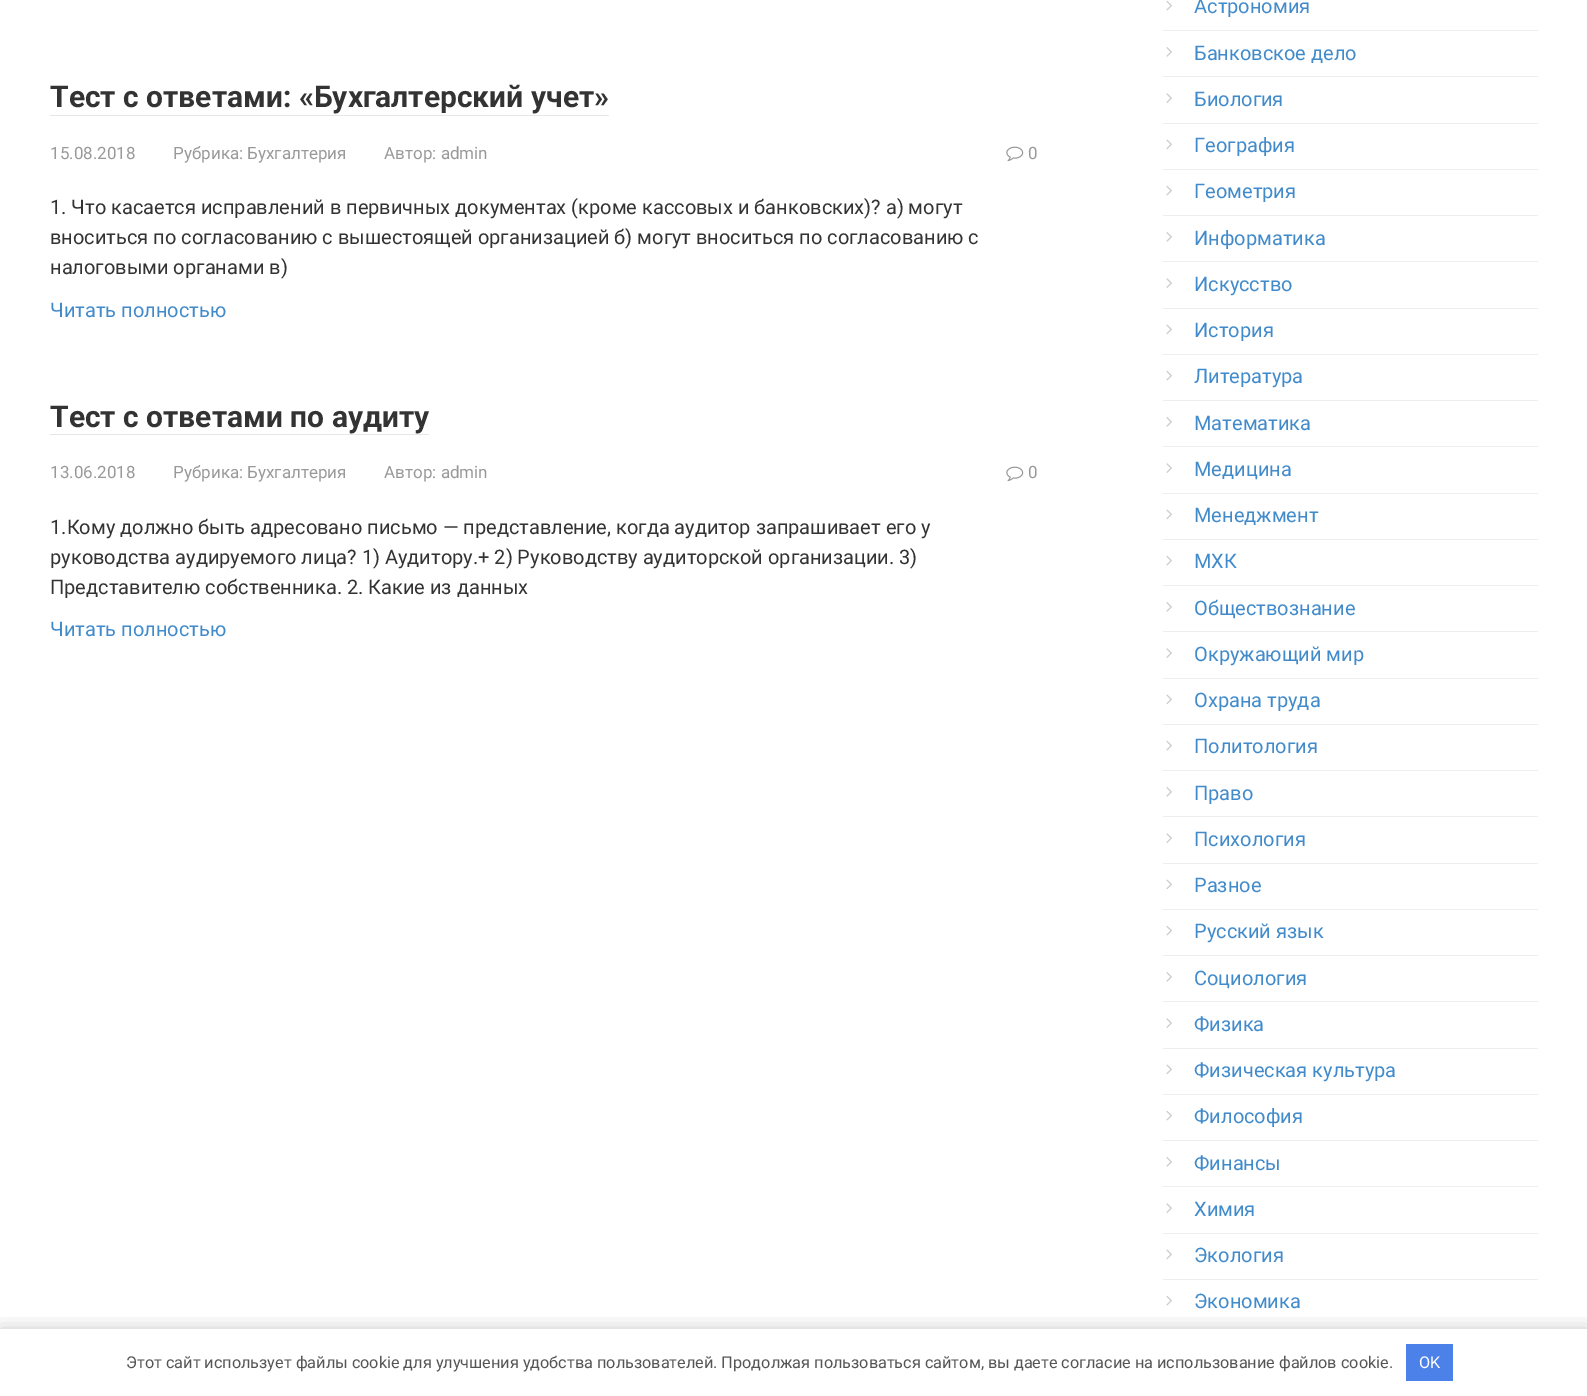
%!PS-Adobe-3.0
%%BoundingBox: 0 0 1587 1396
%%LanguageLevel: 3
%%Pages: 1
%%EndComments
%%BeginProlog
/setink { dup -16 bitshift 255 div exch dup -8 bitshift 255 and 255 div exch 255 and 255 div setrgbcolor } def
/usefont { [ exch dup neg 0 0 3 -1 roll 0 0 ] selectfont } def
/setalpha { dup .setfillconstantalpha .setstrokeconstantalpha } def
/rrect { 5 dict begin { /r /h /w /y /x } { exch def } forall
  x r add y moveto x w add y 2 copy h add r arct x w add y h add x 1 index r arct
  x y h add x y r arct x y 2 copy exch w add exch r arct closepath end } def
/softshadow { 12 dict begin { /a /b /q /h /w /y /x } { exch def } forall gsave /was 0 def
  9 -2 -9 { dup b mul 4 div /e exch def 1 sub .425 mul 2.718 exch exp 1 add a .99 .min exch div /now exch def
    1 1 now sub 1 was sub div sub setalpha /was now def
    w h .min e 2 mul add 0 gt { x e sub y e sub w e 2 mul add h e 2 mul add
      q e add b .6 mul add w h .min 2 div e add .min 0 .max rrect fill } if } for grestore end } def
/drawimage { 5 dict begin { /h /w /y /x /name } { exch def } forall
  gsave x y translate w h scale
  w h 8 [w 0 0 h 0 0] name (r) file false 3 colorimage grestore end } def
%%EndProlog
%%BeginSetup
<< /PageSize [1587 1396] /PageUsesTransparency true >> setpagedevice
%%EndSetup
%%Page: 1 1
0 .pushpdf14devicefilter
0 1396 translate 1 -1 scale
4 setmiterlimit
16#FFFFFF setink
0 0 1587 1396 rectfill
/Roboto-Bold 30 usefont
16#333333 setink
50 107 moveto (Тест с ответами: «Бухгалтерский учет») show
16#E6E6E6 setink
50 115 559 1 rectfill
/Roboto-Regular 17 usefont
16#999999 setink
[
    [(15.08.2018) 50 159]
    [(Рубрика: Бухгалтерия) 173 159]
    [(Автор: admin) 384 159]
] { aload pop moveto show } forall
(img1.raw) 1006 146 18 16 drawimage
1028 159 moveto (0) show
/Roboto-Regular 20 usefont
16#333333 setink
[
    [(1. Что касается исправлений в первичных документах \(кроме кассовых и банковских\)? а\) могут) 50 214]
    [(вноситься по согласованию с вышестоящей организацией б\) могут вноситься по согласованию с) 50 244]
    [(налоговыми органами в\)) 50 274]
] { aload pop moveto show } forall
16#428BCA setink
50 317 moveto (Читать полностью) show
/Roboto-Bold 30 usefont
16#333333 setink
50 427 moveto (Тест с ответами по аудиту) show
16#E6E6E6 setink
50 434 379 1 rectfill
/Roboto-Regular 17 usefont
16#999999 setink
[
    [(13.06.2018) 50 478]
    [(Рубрика: Бухгалтерия) 173 478]
    [(Автор: admin) 384 478]
] { aload pop moveto show } forall
(img1.raw) 1006 466 18 16 drawimage
1028 478 moveto (0) show
/Roboto-Regular 20 usefont
16#333333 setink
[
    [(1.Кому должно быть адресовано письмо — представление, когда аудитор запрашивает его у) 50 534]
    [(руководства аудируемого лица? 1\) Аудитору.+ 2\) Руководству аудиторской организации. 3\)) 50 564]
    [(Представителю собственника. 2. Какие из данных) 50 594]
] { aload pop moveto show } forall
16#428BCA setink
50 636 moveto (Читать полностью) show
16#EEEEEE setink
1163 30 375 1 rectfill
(img2.raw) 1166 0 6 11 drawimage
16#428BCA setink
1194 13 moveto (Астрономия) show
16#EEEEEE setink
1163 76 375 1 rectfill
(img3.raw) 1166 47 6 10 drawimage
16#428BCA setink
1194 60 moveto (Банковское дело) show
16#EEEEEE setink
1163 123 375 1 rectfill
(img4.raw) 1166 93 6 10 drawimage
16#428BCA setink
1194 106 moveto (Биология) show
16#EEEEEE setink
1163 169 375 1 rectfill
(img5.raw) 1166 139 6 11 drawimage
16#428BCA setink
1194 152 moveto (География) show
16#EEEEEE setink
1163 215 375 1 rectfill
(img2.raw) 1166 185 6 11 drawimage
16#428BCA setink
1194 198 moveto (Геометрия) show
16#EEEEEE setink
1163 261 375 1 rectfill
(img3.raw) 1166 232 6 10 drawimage
16#428BCA setink
1194 245 moveto (Информатика) show
16#EEEEEE setink
1163 308 375 1 rectfill
(img4.raw) 1166 278 6 10 drawimage
16#428BCA setink
1194 291 moveto (Искусство) show
16#EEEEEE setink
1163 354 375 1 rectfill
(img5.raw) 1166 324 6 11 drawimage
16#428BCA setink
1194 337 moveto (История) show
16#EEEEEE setink
1163 400 375 1 rectfill
(img2.raw) 1166 370 6 11 drawimage
16#428BCA setink
1194 383 moveto (Литература) show
16#EEEEEE setink
1163 446 375 1 rectfill
(img3.raw) 1166 417 6 10 drawimage
16#428BCA setink
1194 430 moveto (Математика) show
16#EEEEEE setink
1163 493 375 1 rectfill
(img4.raw) 1166 463 6 10 drawimage
16#428BCA setink
1194 476 moveto (Медицина) show
16#EEEEEE setink
1163 539 375 1 rectfill
(img5.raw) 1166 509 6 11 drawimage
16#428BCA setink
1194 522 moveto (Менеджмент) show
16#EEEEEE setink
1163 585 375 1 rectfill
(img2.raw) 1166 555 6 11 drawimage
16#428BCA setink
1194 568 moveto (МХК) show
16#EEEEEE setink
1163 631 375 1 rectfill
(img3.raw) 1166 602 6 10 drawimage
16#428BCA setink
1194 615 moveto (Обществознание) show
16#EEEEEE setink
1163 678 375 1 rectfill
(img4.raw) 1166 648 6 10 drawimage
16#428BCA setink
1194 661 moveto (Окружающий мир) show
16#EEEEEE setink
1163 724 375 1 rectfill
(img5.raw) 1166 694 6 11 drawimage
16#428BCA setink
1194 707 moveto (Охрана труда) show
16#EEEEEE setink
1163 770 375 1 rectfill
(img2.raw) 1166 740 6 11 drawimage
16#428BCA setink
1194 753 moveto (Политология) show
16#EEEEEE setink
1163 816 375 1 rectfill
(img3.raw) 1166 787 6 10 drawimage
16#428BCA setink
1194 800 moveto (Право) show
16#EEEEEE setink
1163 863 375 1 rectfill
(img4.raw) 1166 833 6 10 drawimage
16#428BCA setink
1194 846 moveto (Психология) show
16#EEEEEE setink
1163 909 375 1 rectfill
(img5.raw) 1166 879 6 11 drawimage
16#428BCA setink
1194 892 moveto (Разное) show
16#EEEEEE setink
1163 955 375 1 rectfill
(img2.raw) 1166 925 6 11 drawimage
16#428BCA setink
1194 938 moveto (Русский язык) show
16#EEEEEE setink
1163 1001 375 1 rectfill
(img3.raw) 1166 972 6 10 drawimage
16#428BCA setink
1194 985 moveto (Социология) show
16#EEEEEE setink
1163 1048 375 1 rectfill
(img4.raw) 1166 1018 6 10 drawimage
16#428BCA setink
1194 1031 moveto (Физика) show
16#EEEEEE setink
1163 1094 375 1 rectfill
(img5.raw) 1166 1064 6 11 drawimage
16#428BCA setink
1194 1077 moveto (Физическая культура) show
16#EEEEEE setink
1163 1140 375 1 rectfill
(img2.raw) 1166 1110 6 11 drawimage
16#428BCA setink
1194 1123 moveto (Философия) show
16#EEEEEE setink
1163 1186 375 1 rectfill
(img3.raw) 1166 1157 6 10 drawimage
16#428BCA setink
1194 1170 moveto (Финансы) show
16#EEEEEE setink
1163 1233 375 1 rectfill
(img4.raw) 1166 1203 6 10 drawimage
16#428BCA setink
1194 1216 moveto (Химия) show
16#EEEEEE setink
1163 1279 375 1 rectfill
(img5.raw) 1166 1249 6 11 drawimage
16#428BCA setink
1194 1262 moveto (Экология) show
(img2.raw) 1166 1295 6 11 drawimage
1194 1308 moveto (Экономика) show
gsave
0 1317 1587 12 rectclip
16#000000 setink
0 1329 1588 67 0 9.5 0.2 softshadow
grestore
/Roboto-Regular 16.25 usefont
16#555555 setink
126 1368 moveto (Этот сайт использует файлы cookie для улучшения удобства пользователей. Продолжая пользоваться сайтом, вы даете согласие на использование файлов cookie.) show
16#4B81E8 setink
1406 1344 47 37 rectfill
16#FFFFFF setink
1419 1368 moveto (OK) show
.poppdf14devicefilter showpage
%%EOF
